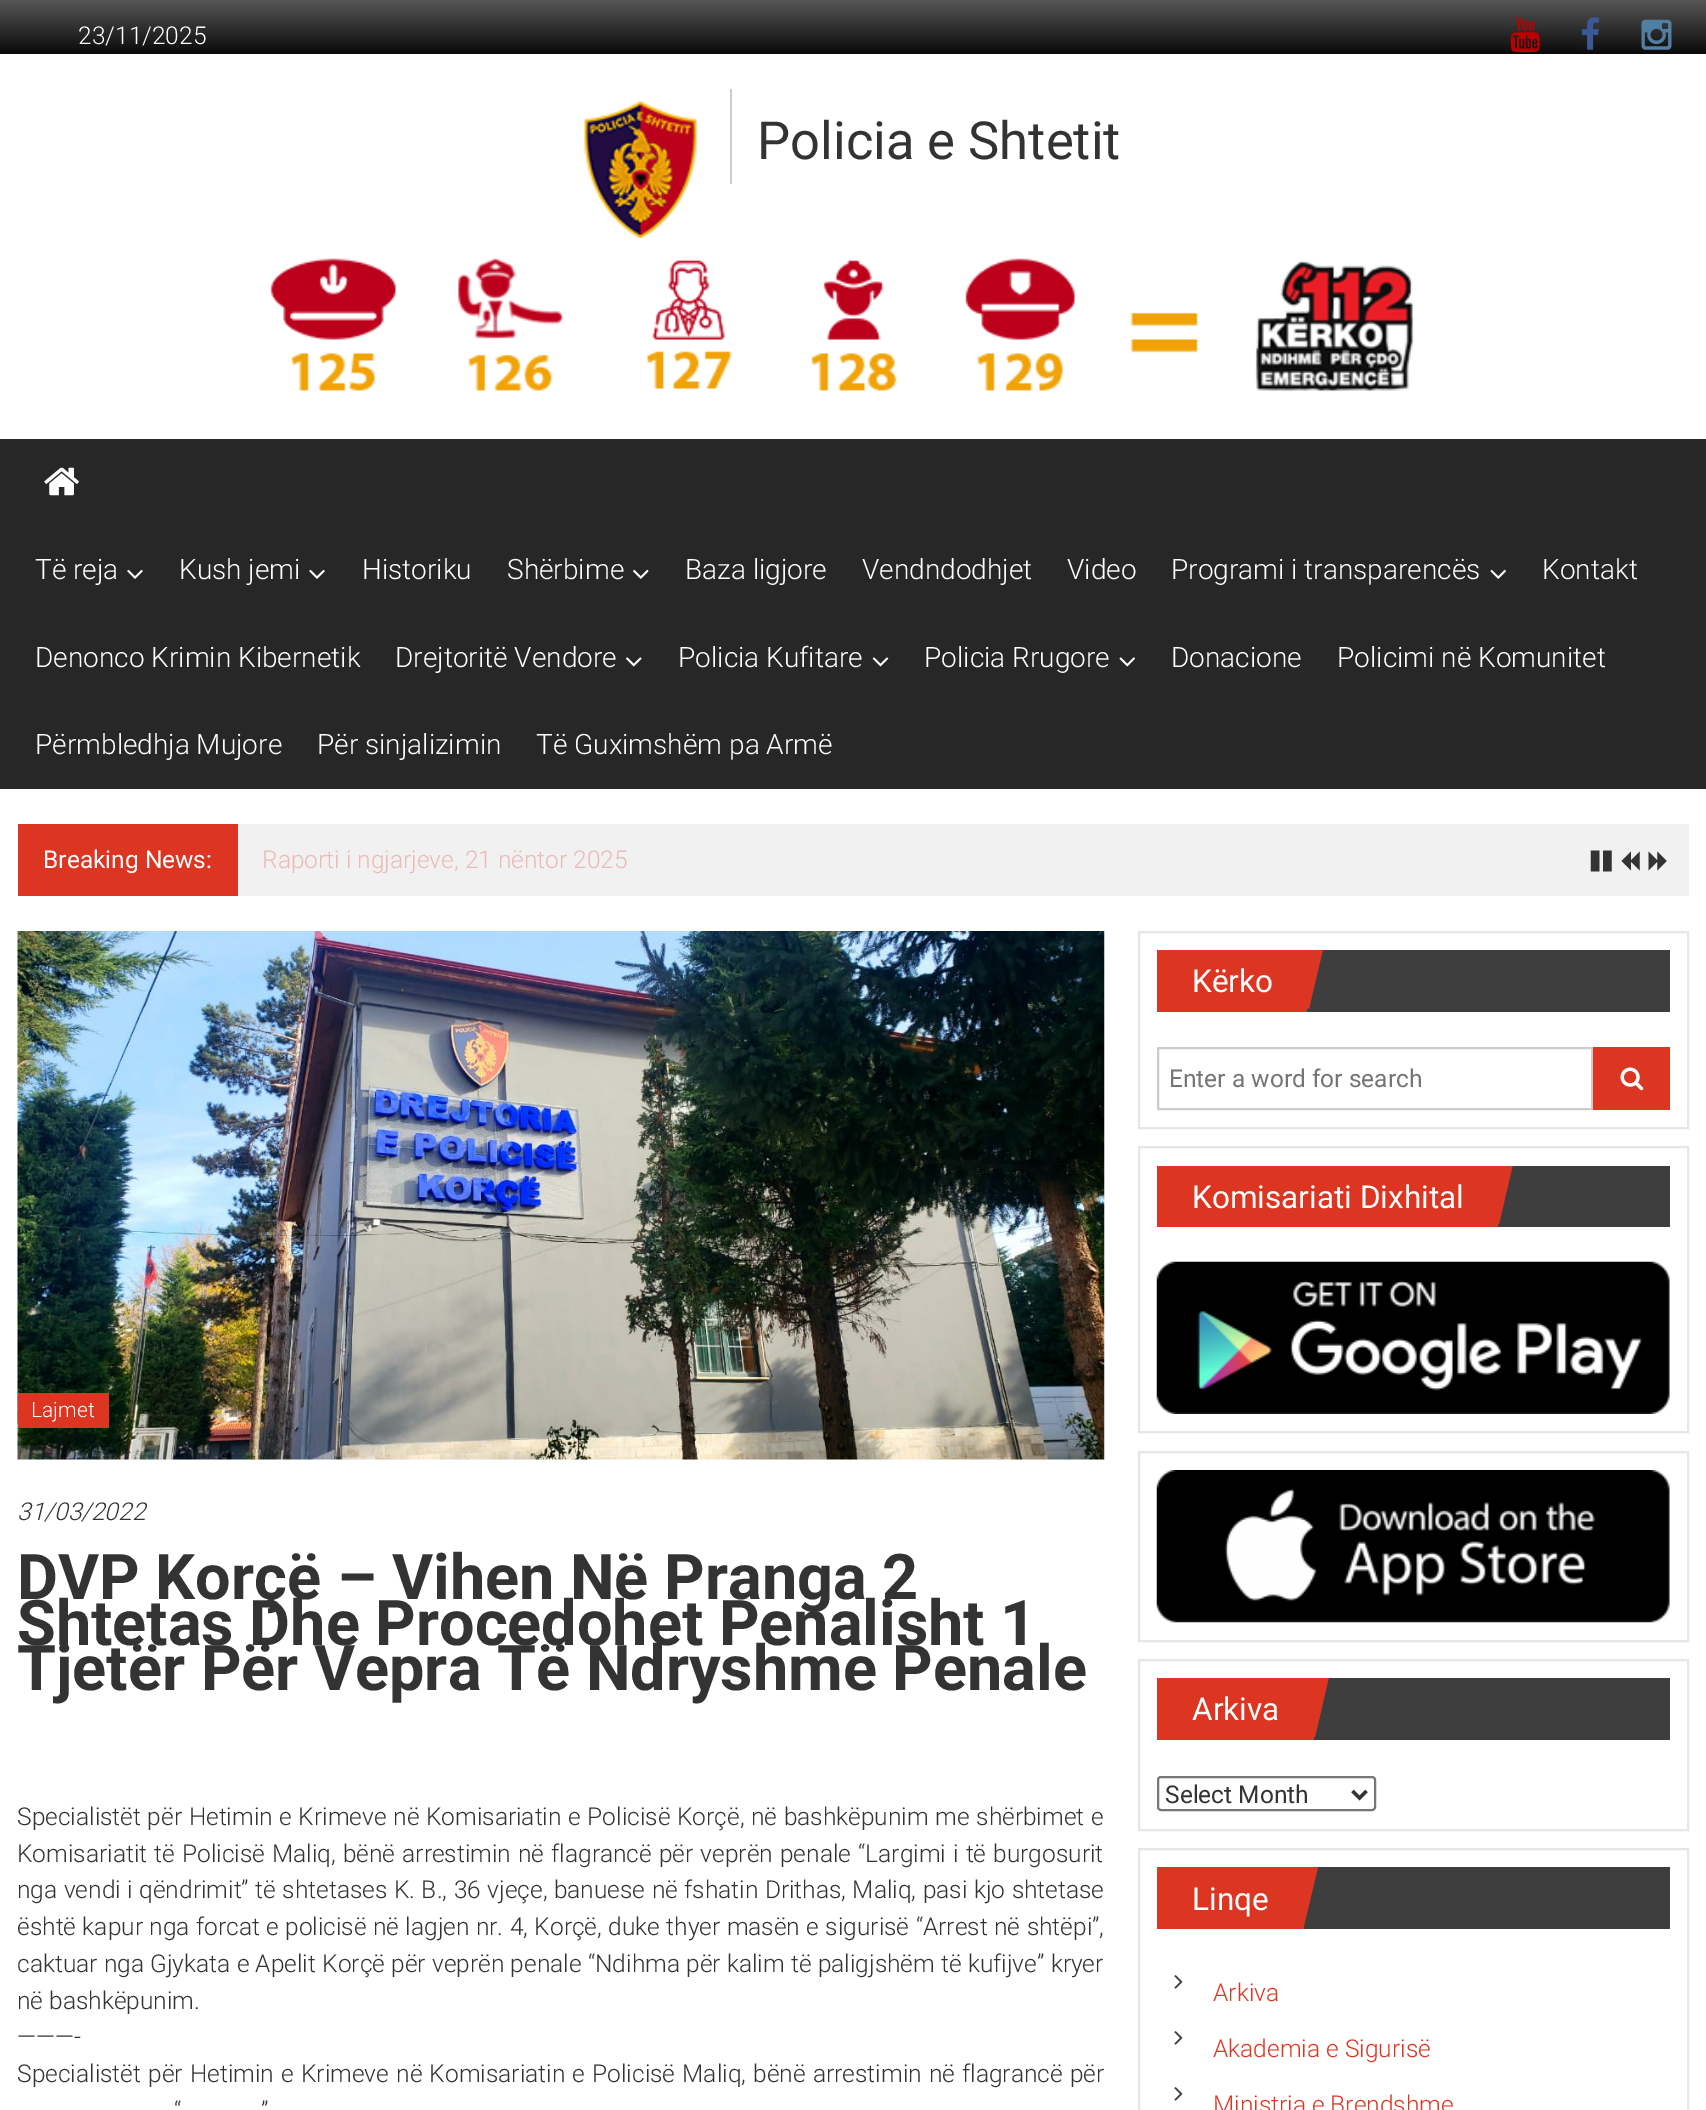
%!PS-Adobe-3.0
%%BoundingBox: 0 0 1706 2110
%%LanguageLevel: 3
%%Pages: 1
%%EndComments
%%BeginProlog
/setink { dup -16 bitshift 255 div exch dup -8 bitshift 255 and 255 div exch 255 and 255 div setrgbcolor } def
/usefont { [ exch dup neg 0 0 3 -1 roll 0 0 ] selectfont } def
/rrect { 5 dict begin { /r /h /w /y /x } { exch def } forall
  x r add y moveto x w add y 2 copy h add r arct x w add y h add x 1 index r arct
  x y h add x y r arct x y 2 copy exch w add exch r arct closepath end } def
/drawimage { 5 dict begin { /h /w /y /x /name } { exch def } forall
  gsave x y translate w h scale
  w h 8 [w 0 0 h 0 0] name (r) file false 3 colorimage grestore end } def
%%EndProlog
%%BeginSetup
<< /PageSize [1706 2110] >> setpagedevice
%%EndSetup
%%Page: 1 1
0 2110 translate 1 -1 scale
4 setmiterlimit
16#FFFFFF setink
0 0 1706 2110 rectfill
gsave 0 0 moveto 1706 0 lineto 1706 54 lineto 0 54 lineto closepath clip newpath
<< /ShadingType 2 /ColorSpace /DeviceRGB /Coords [853 0 853 54] /Extend [true true] /Function << /FunctionType 2 /Domain [0 1] /C0 [0.337 0.337 0.337] /C1 [0.039 0.039 0.039] /N 1 >> >> shfill grestore
/Roboto-Light 24.5 usefont
78 44 moveto (23/11/2025) show
(img1.raw) 1510 17 30 36 drawimage
(img2.raw) 1582 17 17 33 drawimage
(img3.raw) 1641 19 31 31 drawimage
(img4.raw) 584 101 113 137 drawimage
16#CCCCCC setink
730 89 2 95 rectfill
/Roboto-Regular 52.5 usefont
16#333333 setink
757 159 moveto (Policia e Shtetit) show
(img5.raw) 270 258 1144 134 drawimage
16#272727 setink
0 439 1706 350 rectfill
(img6.raw) 44 467 35 29 drawimage
/Roboto-Light 28 usefont
16#FFFFFF setink
35 579 moveto (Të reja) show
(img7.raw) 127 569 16 10 drawimage
179 579 moveto (Kush jemi) show
(img7.raw) 309 569 16 10 drawimage
362 579 moveto (Historiku) show
507 579 moveto (Shërbime) show
(img8.raw) 633 569 16 10 drawimage
[
    [(Baza ligjore) 685 579]
    [(Vendndodhjet) 862 579]
    [(Video) 1067 579]
    [(Programi i transparencës) 1171 579]
] { aload pop moveto show } forall
(img9.raw) 1490 569 16 10 drawimage
[
    [(Kontakt) 1542 579]
    [(Denonco Krimin Kibernetik) 35 667]
    [(Drejtoritë Vendore) 395 667]
] { aload pop moveto show } forall
(img10.raw) 626 657 16 10 drawimage
678 667 moveto (Policia Kufitare) show
(img11.raw) 872 657 17 10 drawimage
924 667 moveto (Policia Rrugore) show
(img12.raw) 1119 657 16 10 drawimage
[
    [(Donacione) 1171 667]
    [(Policimi në Komunitet) 1337 667]
    [(Përmbledhja Mujore) 35 754]
    [(Për sinjalizimin) 317 754]
    [(Të Guximshëm pa Armë) 536 754]
] { aload pop moveto show } forall
16#F1F1F1 setink
238 824 1451 72 rectfill
16#DC3522 setink
18 824 220 72 rectfill
/Roboto-Regular 24.5 usefont
16#FFFFFF setink
43 868 moveto (Breaking News:) show
/Roboto-Light 24.5 usefont
16#EBBAB5 setink
262 868 moveto (Raporti i ngjarjeve, 21 nëntor 2025) show
(img13.raw) 1590 850 22 22 drawimage
(img14.raw) 1621 851 19 20 drawimage
(img15.raw) 1648 851 19 20 drawimage
(img16.raw) 17 931 1088 529 drawimage
16#DC3522 setink
18 1393 91 35 rectfill
/Roboto-Light 21 usefont
16#FFFFFF setink
31 1417 moveto (Lajmet) show
/Roboto-LightItalic 24.5 usefont
16#333333 setink
17 1520 moveto (31/03/2022) show
/Roboto-Bold 63 usefont
[
    [(DVP Korçë – Vihen Në Pranga 2) 17 1599]
    [(Shtetas Dhe Procedohet Penalisht 1) 17 1645]
    [(Tjetër Për Vepra Të Ndryshme Penale) 17 1690]
] { aload pop moveto show } forall
/Roboto-Light 24.5 usefont
17 1825 moveto 0.6 0 32 (Specialistët për Hetimin e Krimeve në Komisariatin e Policisë Korçë, në bashkëpunim me shërbimet e) widthshow
17 1862 moveto 1.1 0 32 (Komisariatit të Policisë Maliq, bënë arrestimin në flagrancë për veprën penale “Largimi i të burgosurit) widthshow
17 1898 moveto 0.5 0 32 (nga vendi i qëndrimit” të shtetases K. B., 36 vjeçe, banuese në fshatin Drithas, Maliq, pasi kjo shtetase) widthshow
17 1935 moveto 0.4 0 32 (është kapur nga forcat e policisë në lagjen nr. 4, Korçë, duke thyer masën e sigurisë “Arrest në shtëpi”,) widthshow
17 1972 moveto 0.25 0 32 (caktuar nga Gjykata e Apelit Korçë për veprën penale “Ndihma për kalim të paligjshëm të kufijve” kryer) widthshow
17 2009 moveto (në bashkëpunim.) show
17 2045 moveto (———-) show
17 2082 moveto 1.2 0 32 (Specialistët për Hetimin e Krimeve në Komisariatin e Policisë Maliq, bënë arrestimin në flagrancë për) widthshow
174 2119 moveto 1 0 32 (“) widthshow
261 2119 moveto 1 0 32 (”) widthshow
16#E6E6E6 setink
2 setlinewidth
1139 932 549 196 rectstroke
16#3E3E3E setink
1307 950 363 62 rectfill
16#DC3522 setink
1157 950 150 62 rectfill
gsave
1157 950 513 62 rectclip
1323 949 moveto 1309 1009 lineto 1249 995 lineto 1263 935 lineto closepath fill
grestore
/Roboto-Regular 31.5 usefont
16#FFFFFF setink
1192 992 moveto (Kërko) show
16#CCCCCC setink
1158 1048 434 61 rectstroke
/Roboto-Regular 24.5 usefont
16#757575 setink
1169 1087 moveto (Enter a word for search) show
16#DC3522 setink
1593 1047 77 63 rectfill
(img17.raw) 1620 1067 24 24 drawimage
16#E6E6E6 setink
1139 1147 549 285 rectstroke
16#3E3E3E setink
1498 1166 172 61 rectfill
16#DC3522 setink
1157 1166 341 61 rectfill
gsave
1157 1166 513 61 rectclip
1513 1164 moveto 1499 1224 lineto 1440 1210 lineto 1454 1151 lineto closepath fill
grestore
/Roboto-Regular 31.5 usefont
16#FFFFFF setink
1192 1208 moveto (Komisariati Dixhital) show
(img18.raw) 1156 1261 514 153 drawimage
16#E6E6E6 setink
1139 1452 549 189 rectstroke
(img19.raw) 1156 1470 514 153 drawimage
1139 1660 549 170 rectstroke
16#3E3E3E setink
1314 1678 356 62 rectfill
16#DC3522 setink
1157 1678 157 62 rectfill
gsave
1157 1678 513 62 rectclip
1329 1677 moveto 1315 1737 lineto 1255 1723 lineto 1269 1663 lineto closepath fill
grestore
16#FFFFFF setink
1192 1720 moveto (Arkiva) show
16#767676 setink
1158 1777 217 33 3 rrect stroke
16#333333 setink
3.5 setlinewidth
1352.5 1791 moveto 1359.5 1798 lineto 1366.5 1791 lineto stroke
/Roboto-Regular 24.5 usefont
1165 1803 moveto (Select Month) show
16#E6E6E6 setink
2 setlinewidth
1139 1849 549 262 rectstroke
16#3E3E3E setink
1304 1867 366 62 rectfill
16#DC3522 setink
1157 1867 147 62 rectfill
gsave
1157 1867 513 62 rectclip
1318 1867 moveto 1304 1926 lineto 1245 1913 lineto 1258 1853 lineto closepath fill
grestore
/Roboto-Regular 31.5 usefont
16#FFFFFF setink
1192 1910 moveto (Linqe) show
(img20.raw) 1174 1975 9 14 drawimage
/Roboto-Light 24.5 usefont
16#DC3522 setink
1213 2001 moveto (Arkiva) show
(img20.raw) 1174 2031 9 14 drawimage
1213 2057 moveto (Akademia e Sigurisë) show
(img20.raw) 1174 2087 9 14 drawimage
1213 2113 moveto (Ministria e Brendshme) show
showpage
%%EOF
